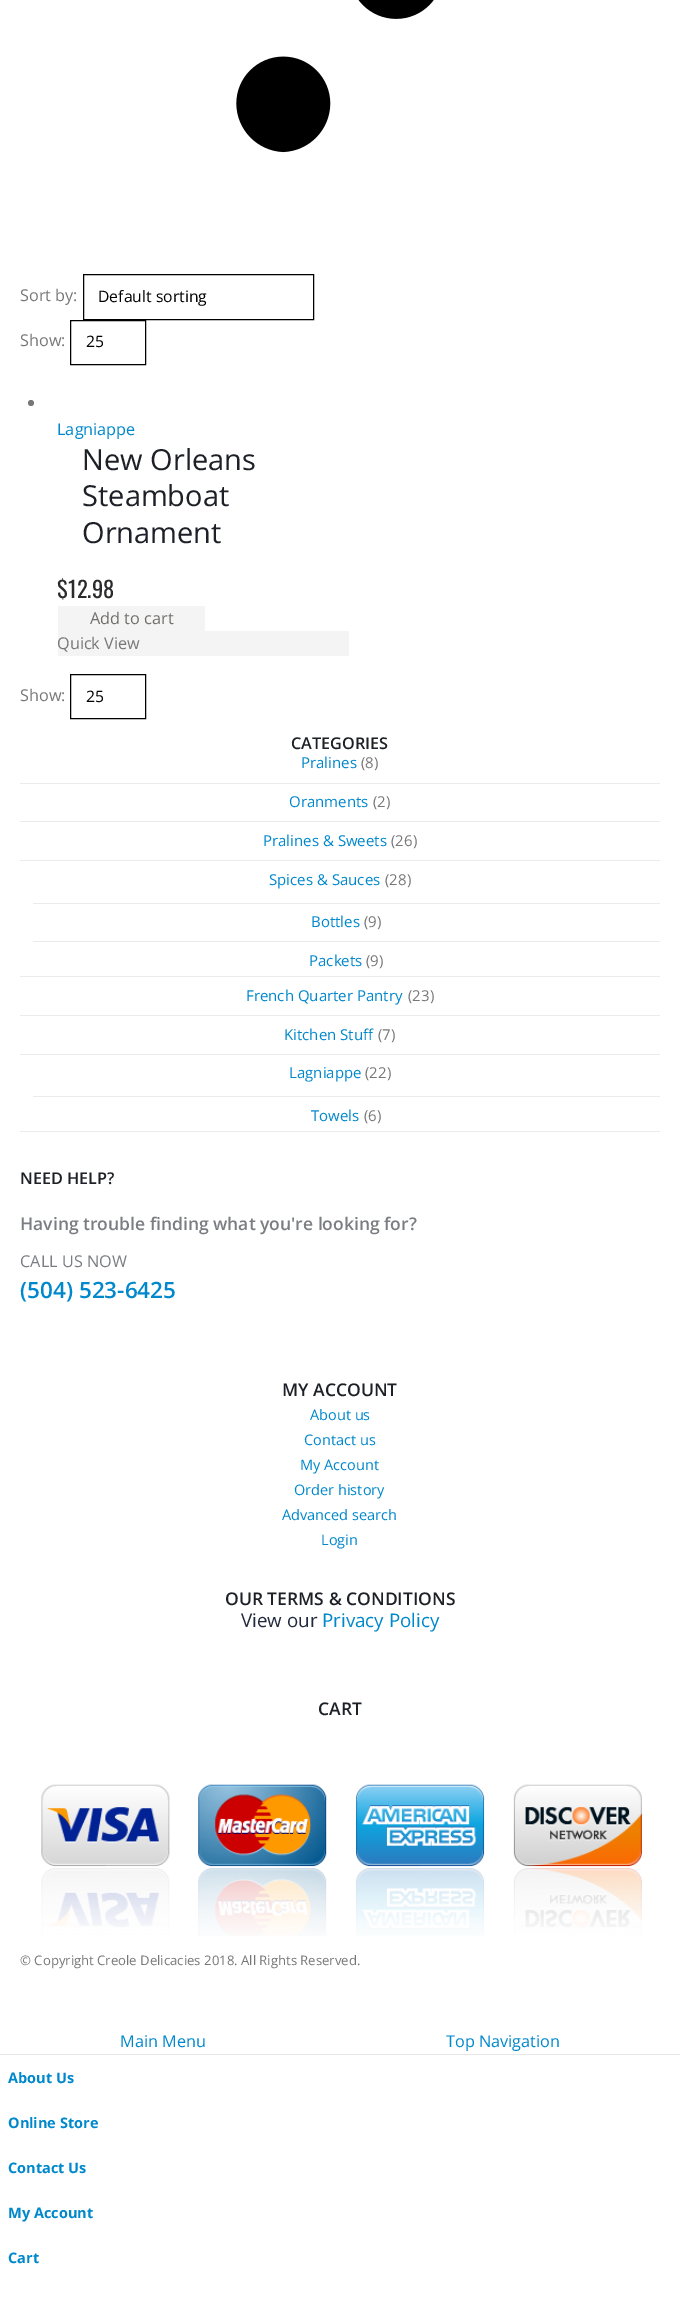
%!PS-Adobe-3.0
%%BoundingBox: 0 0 680 2300
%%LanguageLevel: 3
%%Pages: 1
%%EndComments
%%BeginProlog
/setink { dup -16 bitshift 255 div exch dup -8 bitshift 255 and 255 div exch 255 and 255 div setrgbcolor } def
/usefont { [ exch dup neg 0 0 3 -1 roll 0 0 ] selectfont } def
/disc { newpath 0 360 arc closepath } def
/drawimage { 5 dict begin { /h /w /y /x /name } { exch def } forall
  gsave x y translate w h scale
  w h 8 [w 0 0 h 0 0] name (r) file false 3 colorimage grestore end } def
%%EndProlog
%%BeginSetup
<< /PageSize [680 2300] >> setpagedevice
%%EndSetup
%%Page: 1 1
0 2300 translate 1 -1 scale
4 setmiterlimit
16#FFFFFF setink
0 0 680 2300 rectfill
(img1.raw) 236 0 198 153 drawimage
/OpenSans-Regular 16.25 usefont
16#777777 setink
20 301 moveto (Sort by:) show
16#000000 setink
83.5 274.5 230 45 rectstroke
/OpenSans-Regular 15.75 usefont
98 302 moveto (Default sorting) show
/OpenSans-Regular 16.25 usefont
16#777777 setink
20 346 moveto (Show:) show
16#000000 setink
70.5 320.5 75 44 rectstroke
/OpenSans-Regular 15.75 usefont
86 347 moveto (25) show
16#777777 setink
31 403 3 disc fill
/OpenSans-Regular 16.25 usefont
16#0088CC setink
57 435 moveto (Lagniappe) show
/OpenSans-Regular 29 usefont
16#1D2127 setink
[
    [(New Orleans) 82 470]
    [(Steamboat) 82 506]
    [(Ornament) 82 543]
] { aload pop moveto show } forall
/Oswald-Regular 22.5 usefont
16#2B2B2D setink
57 598 moveto ($12.98) show
16#F4F4F4 setink
58 606 147 25 rectfill
/OpenSans-Regular 16.25 usefont
16#6F6E6B setink
90 624 moveto (Add to cart) show
16#F4F4F4 setink
58 631 291 25 rectfill
16#777777 setink
57 649 moveto (Quick View) show
20 701 moveto (Show:) show
16#000000 setink
70.5 674.5 75 44 rectstroke
/OpenSans-Regular 15.75 usefont
86 702 moveto (25) show
/OpenSans-SemiBold 16.25 usefont
16#1D2127 setink
291 749 moveto (CATEGORIES) show
16#EBEBEB setink
20 1131 640 1 rectfill
/OpenSans-Regular 15 usefont
16#0088CC setink
301 768 moveto (Pralines) show
16#777777 setink
361 768 moveto (\(8\)) show
16#EBEBEB setink
20 783 640 1 rectfill
16#0088CC setink
289 807 moveto (Oranments) show
16#777777 setink
373 807 moveto (\(2\)) show
16#EBEBEB setink
20 821 640 1 rectfill
16#0088CC setink
263 846 moveto (Pralines & Sweets) show
16#777777 setink
391 846 moveto (\(26\)) show
16#EBEBEB setink
20 860 640 1 rectfill
16#0088CC setink
269 885 moveto (Spices & Sauces) show
16#777777 setink
385 885 moveto (\(28\)) show
16#EBEBEB setink
33 903 627 1 rectfill
16#0088CC setink
311 927 moveto (Bottles) show
16#777777 setink
364 927 moveto (\(9\)) show
16#EBEBEB setink
33 941 627 1 rectfill
16#0088CC setink
309 966 moveto (Packets) show
16#777777 setink
366 966 moveto (\(9\)) show
16#EBEBEB setink
20 976 640 1 rectfill
16#0088CC setink
246 1001 moveto (French Quarter Pantry) show
16#777777 setink
408 1001 moveto (\(23\)) show
16#EBEBEB setink
20 1015 640 1 rectfill
16#0088CC setink
284 1040 moveto (Kitchen Stuff) show
16#777777 setink
378 1040 moveto (\(7\)) show
16#EBEBEB setink
20 1054 640 1 rectfill
16#0088CC setink
289 1078 moveto (Lagniappe) show
16#777777 setink
365 1078 moveto (\(22\)) show
16#EBEBEB setink
33 1096 627 1 rectfill
16#0088CC setink
311 1121 moveto (Towels) show
16#777777 setink
364 1121 moveto (\(6\)) show
/OpenSans-SemiBold 16.25 usefont
16#1D2127 setink
20 1184 moveto (NEED HELP?) show
/OpenSans-SemiBold 17.5 usefont
16#7A7D82 setink
20 1230 moveto (Having trouble finding what you're looking for?) show
/OpenSans-Regular 16.25 usefont
20 1267 moveto (CALL US NOW) show
/OpenSans-SemiBold 22.5 usefont
16#0088CC setink
20 1298 moveto (\(504\) 523-6425) show
/OpenSans-SemiBold 17.5 usefont
16#1D2127 setink
282 1396 moveto (MY ACCOUNT) show
/OpenSans-Regular 14.5 usefont
16#0088CC setink
[
    [(About us) 310 1420]
    [(Contact us) 304 1445]
    [(My Account) 300 1470]
    [(Order history) 294 1495]
    [(Advanced search) 282 1520]
    [(Login) 321 1545]
] { aload pop moveto show } forall
/OpenSans-SemiBold 17.5 usefont
16#1D2127 setink
225 1605 moveto (OUR TERMS & CONDITIONS) show
/OpenSans-Regular 18.75 usefont
16#21293C setink
241 1627 moveto (View our) show
16#0088CC setink
322 1627 moveto (Privacy Policy) show
/OpenSans-SemiBold 17.5 usefont
16#1D2127 setink
318 1715 moveto (CART) show
(img2.raw) 41 1784 602 152 drawimage
/OpenSans-Regular 13.15 usefont
16#777777 setink
20 1965 moveto (© Copyright Creole Delicacies 2018. All Rights Reserved.) show
16#E7E7E7 setink
0 2054 680 1 rectfill
/OpenSans-Regular 16.25 usefont
16#0088CC setink
120 2047 moveto (Main Menu) show
446 2047 moveto (Top Navigation) show
/OpenSans-Bold 14.5 usefont
[
    [(About Us) 8 2083]
    [(Online Store) 8 2128]
    [(Contact Us) 8 2173]
    [(My Account) 8 2218]
    [(Cart) 8 2263]
] { aload pop moveto show } forall
showpage
%%EOF
